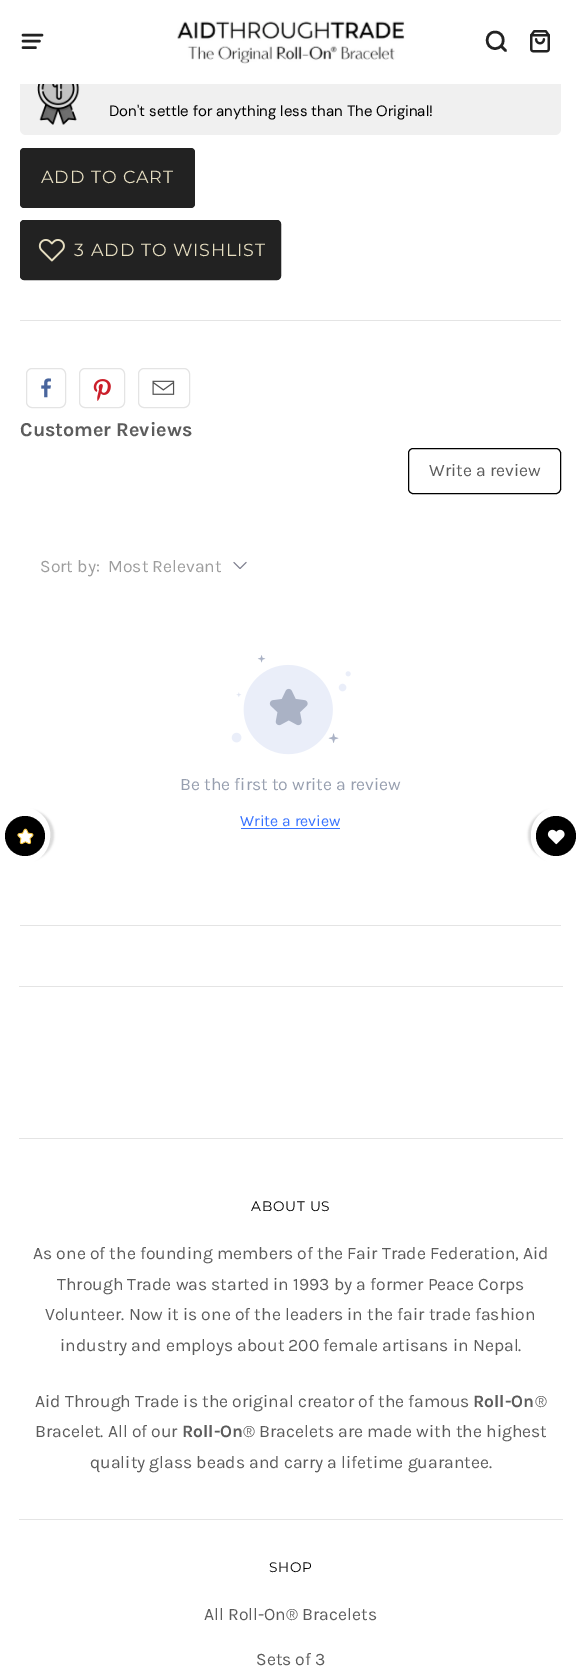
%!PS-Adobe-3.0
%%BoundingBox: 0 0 581 1671
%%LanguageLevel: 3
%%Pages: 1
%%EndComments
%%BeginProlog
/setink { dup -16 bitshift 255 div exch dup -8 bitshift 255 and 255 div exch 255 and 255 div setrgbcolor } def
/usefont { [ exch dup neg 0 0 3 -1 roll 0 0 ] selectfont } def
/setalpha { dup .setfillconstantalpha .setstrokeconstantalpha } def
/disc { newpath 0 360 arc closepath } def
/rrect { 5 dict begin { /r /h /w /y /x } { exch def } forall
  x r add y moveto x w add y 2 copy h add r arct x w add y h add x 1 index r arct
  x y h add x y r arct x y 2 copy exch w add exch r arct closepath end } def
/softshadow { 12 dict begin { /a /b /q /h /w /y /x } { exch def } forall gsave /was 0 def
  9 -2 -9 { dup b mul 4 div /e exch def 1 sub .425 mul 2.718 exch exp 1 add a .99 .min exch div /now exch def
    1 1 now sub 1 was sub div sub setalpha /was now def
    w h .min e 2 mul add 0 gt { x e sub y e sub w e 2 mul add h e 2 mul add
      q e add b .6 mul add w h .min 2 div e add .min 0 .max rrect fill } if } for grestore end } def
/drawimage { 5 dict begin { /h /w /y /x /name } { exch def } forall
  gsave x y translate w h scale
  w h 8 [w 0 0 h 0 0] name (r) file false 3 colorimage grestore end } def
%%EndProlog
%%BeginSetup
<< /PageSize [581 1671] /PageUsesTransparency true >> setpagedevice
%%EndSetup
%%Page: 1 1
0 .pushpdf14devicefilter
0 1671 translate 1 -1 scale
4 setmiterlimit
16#FFFFFF setink
0 0 581 1671 rectfill
16#F0F0F0 setink
20 59 541 76 6 rrect fill
16#FFFFFF setink
20 59 541 25 rectfill
16#222222 setink
2.5 setlinewidth
1 setlinecap
1 setlinejoin
23 35 moveto 42 35 lineto 23 41 moveto 39.5 41 lineto 23 47.5 moveto 35.5 47.5 lineto stroke
(img1.raw) 177 21 228 43 drawimage
495 32 moveto 484.5 32 484.5 48.5 495 48.5 curveto 506 48.5 506 32 495 32 curveto closepath 505.5 50.5 moveto 501 46 lineto closepath stroke
(img2.raw) 530 30 20 23 drawimage
(img3.raw) 37 84 43 41 drawimage
/DMSans-Regular 15 usefont
16#000000 setink
109 116 moveto (Don't settle for anything less than The Original!) show
16#222222 setink
20 148 175 60 4 rrect fill
/Montserrat-Regular 17.5 usefont
16#E6DEC1 setink
41 183 moveto 0.9 0 (ADD TO CART) ashow
16#222222 setink
20.5 220.5 260 59 3.5 rrect gsave fill grestore
1 setlinewidth
0 setlinecap
0 setlinejoin
stroke
(img4.raw) 38 239 27 23 drawimage
16#E6DEC1 setink
74 256 moveto 0.9 0 (3) ashow
91 256 moveto 0.9 0 (ADD TO WISHLIST) ashow
16#E4E4E4 setink
20 320 541 1 rectfill
26.5 368.5 39 39 5.5 rrect stroke
(img5.raw) 41 378 10 20 drawimage
79.5 368.5 45 39 5.5 rrect stroke
(img6.raw) 93 379 18 22 drawimage
138.5 368.5 51 39 5.5 rrect stroke
(img7.raw) 152 380 23 15 drawimage
/Karla-Bold 19.75 usefont
16#5C5C5C setink
20 436 moveto (Customer Reviews) show
16#000000 setink
408.5 448.5 152 45 4.5 rrect stroke
/Karla-Regular 17.5 usefont
16#5C5C5C setink
429 476 moveto (Write a review) show
16#9D9D9D setink
40 572 moveto (Sort by:) show
108 572 moveto (Most Relevant) show
(img8.raw) 233 561 14 8 drawimage
(img9.raw) 231 655 120 100 drawimage
(img10.raw) 269 688 39 38 drawimage
16#979FAF setink
180 790 moveto (Be the first to write a review) show
/Karla-Regular 15.75 usefont
16#3772FF setink
240 826 moveto (Write a review) show
gsave
240 814 101 16 5 rrect clip newpath
240 828 101 1 rectfill
grestore
16#E4E4E4 setink
20 925 541 1 rectfill
16#DADADA setink
-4 810 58 50 28 1 1 softshadow
16#FFFFFF setink
0 864 moveto 0 807 lineto 10 807 24 806 33 809 curveto 61 821 53 864 22 864 curveto closepath fill
16#000000 setink
25 836 20 disc fill
(img11.raw) 17 828 17 17 drawimage
16#DADADA setink
528 810 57 50 28 1 1 softshadow
16#FFFFFF setink
531 837 moveto 531 835 lineto 531 819 544 807 559 807 curveto 581 807 lineto 581 864 lineto 559 864 lineto 544 864 531 852 531 837 curveto closepath fill
16#000000 setink
556 836 20 disc fill
(img12.raw) 547 829 18 16 drawimage
16#E4E4E4 setink
19 986 544 1 rectfill
19 1138 544 1 rectfill
/Montserrat-Regular 13.75 usefont
16#000000 setink
251 1211 moveto 0.75 0 (ABOUT US) ashow
/Karla-Regular 17.5 usefont
16#5C5C5C setink
[
    [(As one of the founding members of the Fair Trade Federation, Aid) 33 1259]
    [(Through Trade was started in 1993 by a former Peace Corps) 57 1290]
    [(Volunteer. Now it is one of the leaders in the fair trade fashion) 45 1320]
    [(industry and employs about 200 female artisans in Nepal.) 60 1351]
    [(Aid Through Trade is the original creator of the famous) 35 1407]
] { aload pop moveto show } forall
/Karla-Bold 17.5 usefont
473 1407 moveto (Roll-On) show
/Karla-Regular 17.5 usefont
535 1407 moveto (®) show
35 1437 moveto (Bracelet. All of our) show
/Karla-Bold 17.5 usefont
182 1437 moveto (Roll-On) show
/Karla-Regular 17.5 usefont
243 1437 moveto (® Bracelets are made with the highest) show
90 1468 moveto (quality glass beads and carry a lifetime guarantee.) show
16#E4E4E4 setink
19 1519 544 1 rectfill
/Montserrat-Regular 13.75 usefont
16#000000 setink
269 1572 moveto 0.75 0 (SHOP) ashow
/Karla-Regular 17.5 usefont
16#5C5C5C setink
204 1620 moveto (All Roll-On® Bracelets) show
256 1665 moveto (Sets of 3) show
.poppdf14devicefilter showpage
%%EOF
